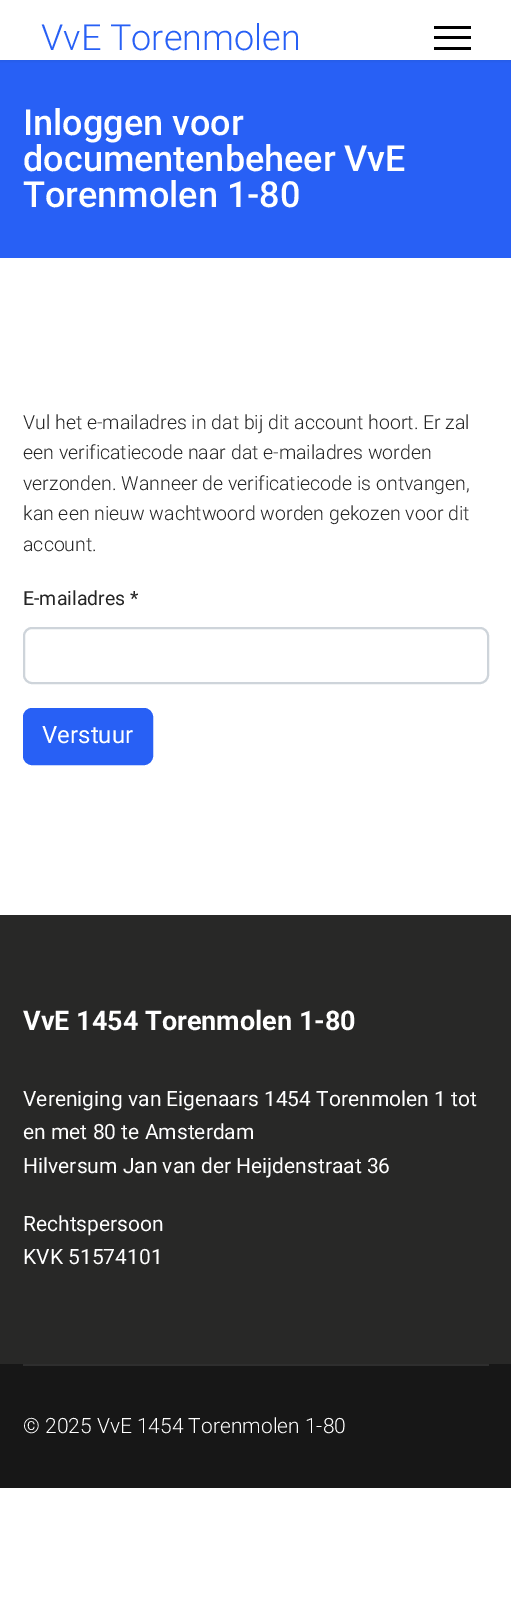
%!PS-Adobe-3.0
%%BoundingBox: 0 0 511 1623
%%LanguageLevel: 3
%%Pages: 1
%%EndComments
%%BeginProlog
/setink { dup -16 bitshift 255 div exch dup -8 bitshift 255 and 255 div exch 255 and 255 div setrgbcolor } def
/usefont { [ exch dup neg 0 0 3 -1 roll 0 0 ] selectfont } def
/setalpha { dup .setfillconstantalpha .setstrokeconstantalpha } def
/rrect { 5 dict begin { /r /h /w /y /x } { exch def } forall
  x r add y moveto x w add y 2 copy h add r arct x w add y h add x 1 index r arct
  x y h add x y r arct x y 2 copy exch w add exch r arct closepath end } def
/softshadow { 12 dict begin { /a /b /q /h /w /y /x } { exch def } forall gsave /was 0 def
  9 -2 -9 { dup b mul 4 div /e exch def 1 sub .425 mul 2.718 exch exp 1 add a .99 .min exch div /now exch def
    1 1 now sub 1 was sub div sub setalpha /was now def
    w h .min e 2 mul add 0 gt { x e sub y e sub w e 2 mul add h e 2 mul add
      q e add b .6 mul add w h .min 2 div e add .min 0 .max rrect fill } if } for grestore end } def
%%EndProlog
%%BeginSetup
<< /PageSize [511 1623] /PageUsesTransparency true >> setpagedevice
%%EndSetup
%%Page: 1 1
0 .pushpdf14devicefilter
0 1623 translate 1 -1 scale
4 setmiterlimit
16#FFFFFF setink
0 0 511 1623 rectfill
16#2860F5 setink
0 60 511 198 rectfill
gsave
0 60 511 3 rectclip
16#000000 setink
0 0 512 60 0 3 0.1 softshadow
grestore
/Roboto-Light 36 usefont
41 50 moveto (VvE Torenmolen) show
[
    [434 26 37 3 16#000000]
    [434 36 37 3 16#000000]
    [434 47 37 3 16#000000]
] { aload pop setink rectfill } forall
/Roboto-Medium 36 usefont
16#FFFFFF setink
[
    [(Inloggen voor) 23 135]
    [(documentenbeheer VvE) 23 171]
    [(Torenmolen 1-80) 23 207]
] { aload pop moveto show } forall
/Roboto-Light 19.5 usefont
16#252525 setink
[
    [(Vul het e-mailadres in dat bij dit account hoort. Er zal) 23 429]
    [(een verificatiecode naar dat e-mailadres worden) 23 459]
    [(verzonden. Wanneer de verificatiecode is ontvangen,) 23 490]
    [(kan een nieuw wachtwoord worden gekozen voor dit) 23 520]
    [(account.) 23 551]
] { aload pop moveto show } forall
/Roboto-Regular 19.5 usefont
23 605 moveto (E-mailadres *) show
16#CED4DA setink
2 setlinewidth
24 628 464 55 8 rrect stroke
16#2860F5 setink
24 709 128 55 8 rrect gsave fill grestore
stroke
/Roboto-Regular 24 usefont
16#FFFFFF setink
42 743 moveto (Verstuur) show
16#282827 setink
0 915 511 449 rectfill
/Roboto-Bold 27 usefont
16#FFFFFF setink
23 1030 moveto (VvE 1454 Torenmolen 1-80) show
/Roboto-Regular 21 usefont
[
    [(Vereniging van Eigenaars 1454 Torenmolen 1 tot) 23 1106]
    [(en met 80 te Amsterdam) 23 1139]
    [(Hilversum Jan van der Heijdenstraat 36) 23 1173]
    [(Rechtspersoon) 23 1231]
    [(KVK 51574101) 23 1264]
] { aload pop moveto show } forall
16#171717 setink
0 1364 511 124 rectfill
16#2E2E2E setink
23 1364 466 2 rectfill
/Roboto-Light 21 usefont
16#FFFFFF setink
23 1433 moveto (© 2025 VvE 1454 Torenmolen 1-80) show
.poppdf14devicefilter showpage
%%EOF
